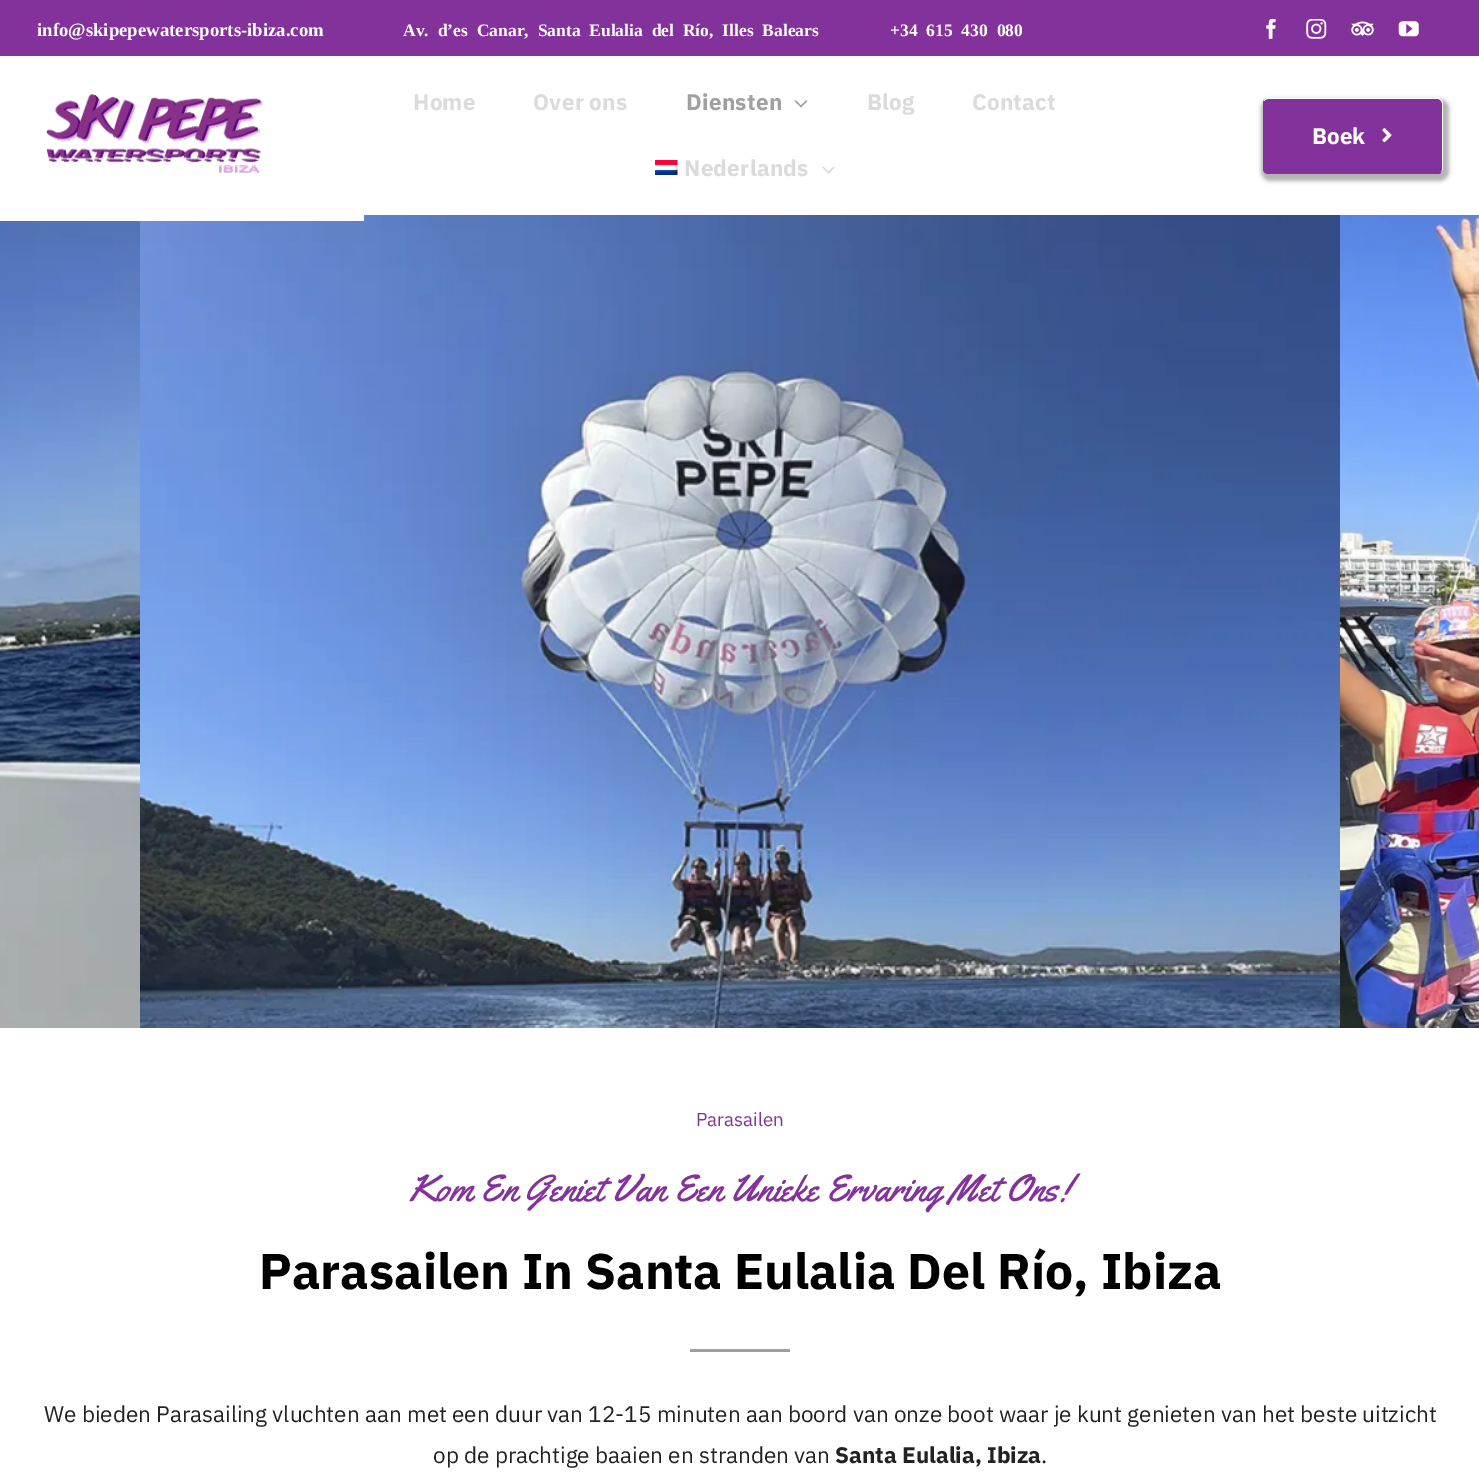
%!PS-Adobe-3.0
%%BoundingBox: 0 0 1479 1479
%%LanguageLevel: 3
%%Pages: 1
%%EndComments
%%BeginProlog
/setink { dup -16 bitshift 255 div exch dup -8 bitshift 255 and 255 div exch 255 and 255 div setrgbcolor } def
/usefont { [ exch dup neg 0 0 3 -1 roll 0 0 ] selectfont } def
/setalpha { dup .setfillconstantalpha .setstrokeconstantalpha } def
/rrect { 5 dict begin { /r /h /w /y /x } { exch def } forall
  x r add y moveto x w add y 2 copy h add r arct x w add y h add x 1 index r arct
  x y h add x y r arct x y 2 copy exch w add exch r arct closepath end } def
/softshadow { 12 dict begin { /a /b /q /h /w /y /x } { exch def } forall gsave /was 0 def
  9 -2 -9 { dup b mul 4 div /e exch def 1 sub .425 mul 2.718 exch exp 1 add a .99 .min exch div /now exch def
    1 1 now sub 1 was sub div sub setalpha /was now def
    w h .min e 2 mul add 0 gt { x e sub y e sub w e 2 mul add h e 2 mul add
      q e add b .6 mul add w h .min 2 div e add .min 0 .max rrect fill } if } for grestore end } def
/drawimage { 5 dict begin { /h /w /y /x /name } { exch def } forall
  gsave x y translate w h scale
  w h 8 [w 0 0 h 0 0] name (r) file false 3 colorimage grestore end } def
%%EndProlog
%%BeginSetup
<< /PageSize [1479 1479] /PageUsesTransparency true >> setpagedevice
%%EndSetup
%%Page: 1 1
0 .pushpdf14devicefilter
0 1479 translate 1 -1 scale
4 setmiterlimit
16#FFFFFF setink
0 0 1479 1479 rectfill
16#84329B setink
0 0 1479 56 rectfill
/LiberationSerif-Bold 18.75 usefont
16#FFFFFF setink
37 36 moveto (info@skipepewatersports-ibiza.com) show
/LiberationSerif-Bold 17.5 usefont
403 36 moveto 4.5 0 32 (Av. d’es Canar, Santa Eulalia del Río, Illes Balears) widthshow
890 36 moveto 4.5 0 32 (+34 615 430 080) widthshow
(img1.raw) 1266 19 10 20 drawimage
(img2.raw) 1306 19 21 20 drawimage
(img3.raw) 1351 21 23 15 drawimage
(img4.raw) 1398 21 21 16 drawimage
(img5.raw) 46 94 217 79 drawimage
/IBMPlexSans-Bold 22.5 usefont
16#DBDBDB setink
413 110 moveto 0.25 0 (Home) ashow
533 110 moveto 0.25 0 (Over ons) ashow
16#A0A0A0 setink
686 110 moveto 0.25 0 (Diensten) ashow
(img6.raw) 794 100 14 8 drawimage
16#DBDBDB setink
867 110 moveto 0.25 0 (Blog) ashow
972 110 moveto 0.25 0 (Contact) ashow
(img7.raw) 655 160 23 15 drawimage
684 176 moveto 0.25 0 (Nederlands) ashow
(img8.raw) 822 166 13 8 drawimage
16#000000 setink
1261 99 188 82 9 2 0.3 softshadow
16#84329B setink
1263 98 180 76 5 rrect fill
16#FFFFFF setink
1268 99 moveto 1438 99 lineto 1440 99 1442 101 1442 104 curveto 1442 170 lineto 1441 173 lineto 1442 172 1443 170 1443 169 curveto 1443 103 lineto 1443 100 1441 98 1438 98 curveto 1268 98 lineto 1266 98 1264 99 1264 101 curveto 1265 100 1266 99 1268 99 curveto closepath fill
1312 144 moveto (Boek) show
(img9.raw) 1382 128 10 15 drawimage
(img10.raw) 0 221 140 807 drawimage
(img11.raw) 140 215 1200 813 drawimage
(img12.raw) 1340 215 139 813 drawimage
140 215 224 6 rectfill
(img13.raw) 27 616 7 10 drawimage
(img14.raw) 1445 621 5 5 drawimage
/IBMPlexSans-Regular 18.75 usefont
16#84329B setink
696 1126 moveto (Parasailen) show
/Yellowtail-Regular 37.5 usefont
409 1201 moveto (Kom En Geniet Van Een Unieke Ervaring Met Ons!) show
/IBMPlexSans-Bold 50 usefont
16#000000 setink
259 1289 moveto (Parasailen In Santa Eulalia Del Río, Ibiza) show
16#A0A0A0 setink
690 1349 100 3 rectfill
/IBMPlexSans-Regular 22.5 usefont
16#222222 setink
44 1422 moveto (We bieden Parasailing vluchten aan met een duur van 12-15 minuten aan boord van onze boot waar je kunt genieten van het beste uitzicht) show
433 1463 moveto (op de prachtige baaien en stranden van) show
/IBMPlexSans-Bold 22.5 usefont
835 1463 moveto (Santa Eulalia, Ibiza) show
/IBMPlexSans-Regular 22.5 usefont
1041 1463 moveto (.) show
.poppdf14devicefilter showpage
%%EOF
